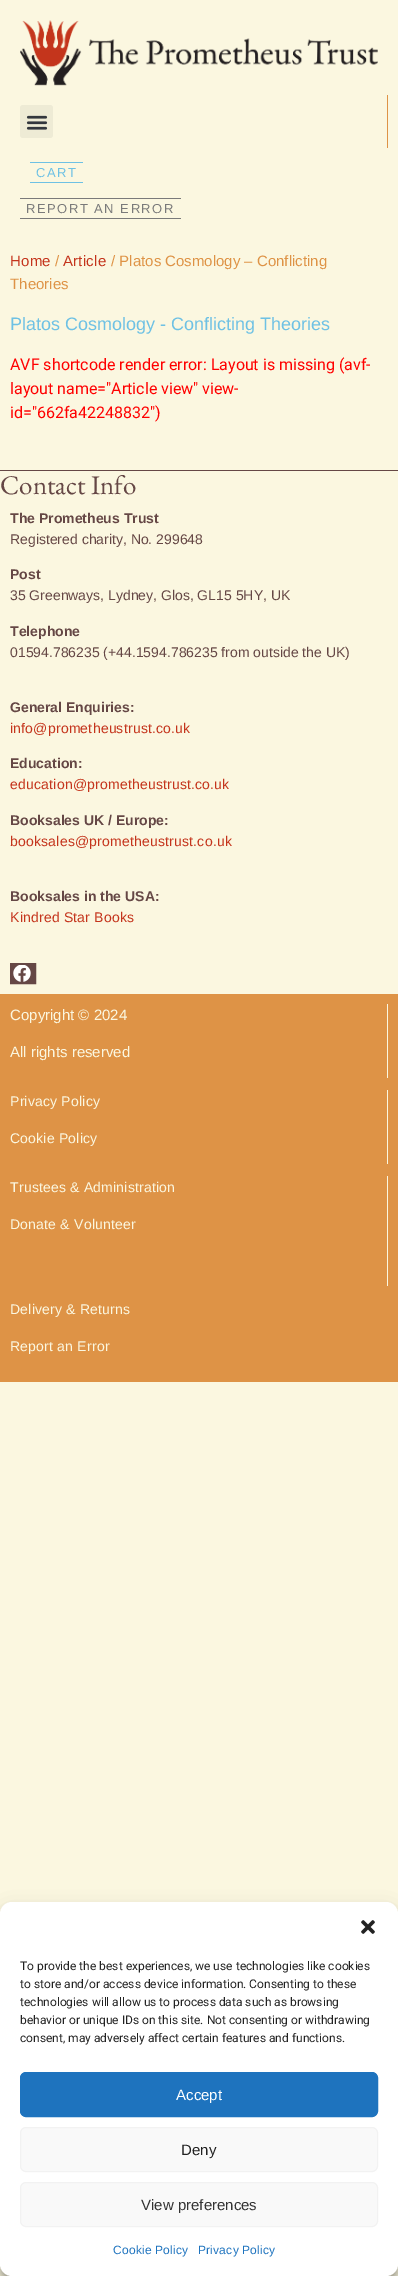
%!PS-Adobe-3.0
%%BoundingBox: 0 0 398 2276
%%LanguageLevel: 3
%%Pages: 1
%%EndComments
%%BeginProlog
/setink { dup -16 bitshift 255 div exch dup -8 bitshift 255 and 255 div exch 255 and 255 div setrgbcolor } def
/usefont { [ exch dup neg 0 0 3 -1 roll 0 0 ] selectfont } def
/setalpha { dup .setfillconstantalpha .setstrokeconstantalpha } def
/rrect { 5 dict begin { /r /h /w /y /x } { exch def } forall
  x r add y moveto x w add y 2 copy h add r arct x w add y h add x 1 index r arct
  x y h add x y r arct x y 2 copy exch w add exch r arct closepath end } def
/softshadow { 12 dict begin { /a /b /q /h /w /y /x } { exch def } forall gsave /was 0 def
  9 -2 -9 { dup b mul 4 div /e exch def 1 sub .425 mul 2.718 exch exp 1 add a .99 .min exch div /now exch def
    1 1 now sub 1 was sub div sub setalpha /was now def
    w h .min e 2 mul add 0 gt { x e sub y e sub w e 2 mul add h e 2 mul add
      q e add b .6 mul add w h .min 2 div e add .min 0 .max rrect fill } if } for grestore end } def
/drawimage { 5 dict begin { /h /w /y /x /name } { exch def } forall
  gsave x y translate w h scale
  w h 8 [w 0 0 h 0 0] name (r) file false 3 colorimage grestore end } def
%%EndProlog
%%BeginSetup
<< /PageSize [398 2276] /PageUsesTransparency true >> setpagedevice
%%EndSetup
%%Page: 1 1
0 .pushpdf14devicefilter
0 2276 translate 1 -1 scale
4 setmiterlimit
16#FBF7E0 setink
0 0 398 2276 rectfill
(img1.raw) 20 20 358 66 drawimage
16#DE9346 setink
387 95 1 53 rectfill
16#EEEBD5 setink
20 105 33 33 3 rrect fill
(img2.raw) 26 115 22 15 drawimage
16#6EC1E4 setink
30 162 53 1 rectfill
30 182 53 1 rectfill
/LiberationSans-Regular 13 usefont
36 177 moveto 1.5 0 (CART) ashow
16#7A7A7A setink
20 198 161 1 rectfill
20 218 161 1 rectfill
26 213 moveto 1.5 0 (REPORT AN ERROR) ashow
/LiberationSans-Regular 15 usefont
16#C4341C setink
10 266 moveto 0.2 0 (Home) ashow
16#DE9346 setink
55 266 moveto (/) show
16#C4341C setink
63 266 moveto 0.2 0 (Article) ashow
16#DE9346 setink
111 266 moveto (/ Platos Cosmology – Conflicting) show
10 289 moveto (Theories) show
/LiberationSans-Regular 18 usefont
16#6EC1E4 setink
10 330 moveto (Platos Cosmology - Conflicting Theories) show
/Roboto-Regular 16 usefont
16#FF0000 setink
[
    [(AVF shortcode render error: Layout is missing \(avf-) 10 370]
    [(layout name="Article view" view-) 10 394]
    [(id="662fa42248832"\)) 10 418]
] { aload pop moveto show } forall
16#654745 setink
0 470 398 1 rectfill
/EBGaramond-Regular 27 usefont
0 494 moveto (Contact Info) show
/LiberationSans-Bold 14 usefont
10 523 moveto (The Prometheus Trust) show
/LiberationSans-Regular 14 usefont
10 544 moveto (Registered charity, No. 299648) show
/LiberationSans-Bold 14 usefont
10 579 moveto (Post) show
/LiberationSans-Regular 14 usefont
10 600 moveto (35 Greenways, Lydney, Glos, GL15 5HY, UK) show
/LiberationSans-Bold 14 usefont
10 636 moveto (Telephone) show
/LiberationSans-Regular 14 usefont
10 657 moveto (01594.786235 \(+44.1594.786235 from outside the UK\)) show
/LiberationSans-Bold 14 usefont
10 712 moveto (General Enquiries:) show
/LiberationSans-Regular 14 usefont
16#C4341C setink
10 733 moveto 0.2 0 (info@prometheustrust.co.uk) ashow
/LiberationSans-Bold 14 usefont
16#654745 setink
10 768 moveto (Education:) show
/LiberationSans-Regular 14 usefont
16#C4341C setink
10 789 moveto 0.2 0 (education@prometheustrust.co.uk) ashow
/LiberationSans-Bold 14 usefont
16#654745 setink
10 825 moveto (Booksales UK / Europe:) show
/LiberationSans-Regular 14 usefont
16#C4341C setink
10 846 moveto 0.2 0 (booksales@prometheustrust.co.uk) ashow
/LiberationSans-Bold 14 usefont
16#654745 setink
10 901 moveto (Booksales in the USA:) show
/LiberationSans-Regular 14 usefont
16#C4341C setink
10 922 moveto 0.2 0 (Kindred Star Books) ashow
16#654745 setink
2 setlinewidth
11 964 24 19 rectstroke
12 965 22 17 rectfill
(img3.raw) 13 965 18 17 drawimage
16#DE9346 setink
0 994 398 388 rectfill
16#FBF7E0 setink
387 1004 1 74 rectfill
/LiberationSans-Regular 15 usefont
10 1020 moveto (Copyright © 2024) show
10 1057 moveto (All rights reserved) show
387 1090 1 74 rectfill
/LiberationSans-Regular 14 usefont
10 1106 moveto 0.2 0 (Privacy Policy) ashow
10 1143 moveto 0.2 0 (Cookie Policy) ashow
387 1176 1 110 rectfill
10 1192 moveto 0.2 0 (Trustees & Administration) ashow
10 1229 moveto 0.2 0 (Donate & Volunteer) ashow
10 1314 moveto 0.2 0 (Delivery & Returns) ashow
10 1351 moveto 0.2 0 (Report an Error) ashow
16#000000 setink
0 1908 398 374 12 3 0.23 softshadow
0 1912 398 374 12 10 0.19 softshadow
16#FFFFFF setink
0 1902 398 374 12 rrect fill
(img4.raw) 361 1920 14 14 drawimage
/Roboto-Regular 12 usefont
16#222222 setink
[
    [(To provide the best experiences, we use technologies like cookies) 20 1970]
    [(to store and/or access device information. Consenting to these) 20 1988]
    [(technologies will allow us to process data such as browsing) 20 2006]
    [(behavior or unique IDs on this site. Not consenting or withdrawing) 20 2024]
    [(consent, may adversely affect certain features and functions.) 20 2042]
] { aload pop moveto show } forall
16#1E73BE setink
20.5 2072.5 357 44 5.5 rrect gsave fill grestore
1 setlinewidth
stroke
/LiberationSans-Regular 15 usefont
16#FFFFFF setink
176 2100 moveto (Accept) show
16#F9F9F9 setink
20.5 2127.5 357 44 5.5 rrect gsave fill grestore
16#F2F2F2 setink
stroke
16#222222 setink
181 2155 moveto (Deny) show
16#F9F9F9 setink
20.5 2182.5 357 44 5.5 rrect gsave fill grestore
16#F2F2F2 setink
stroke
16#333333 setink
141 2210 moveto (View preferences) show
/LiberationSans-Regular 12 usefont
16#1E73BE setink
113 2254 moveto 0.2 0 (Cookie Policy) ashow
198 2254 moveto 0.2 0 (Privacy Policy) ashow
.poppdf14devicefilter showpage
%%EOF
